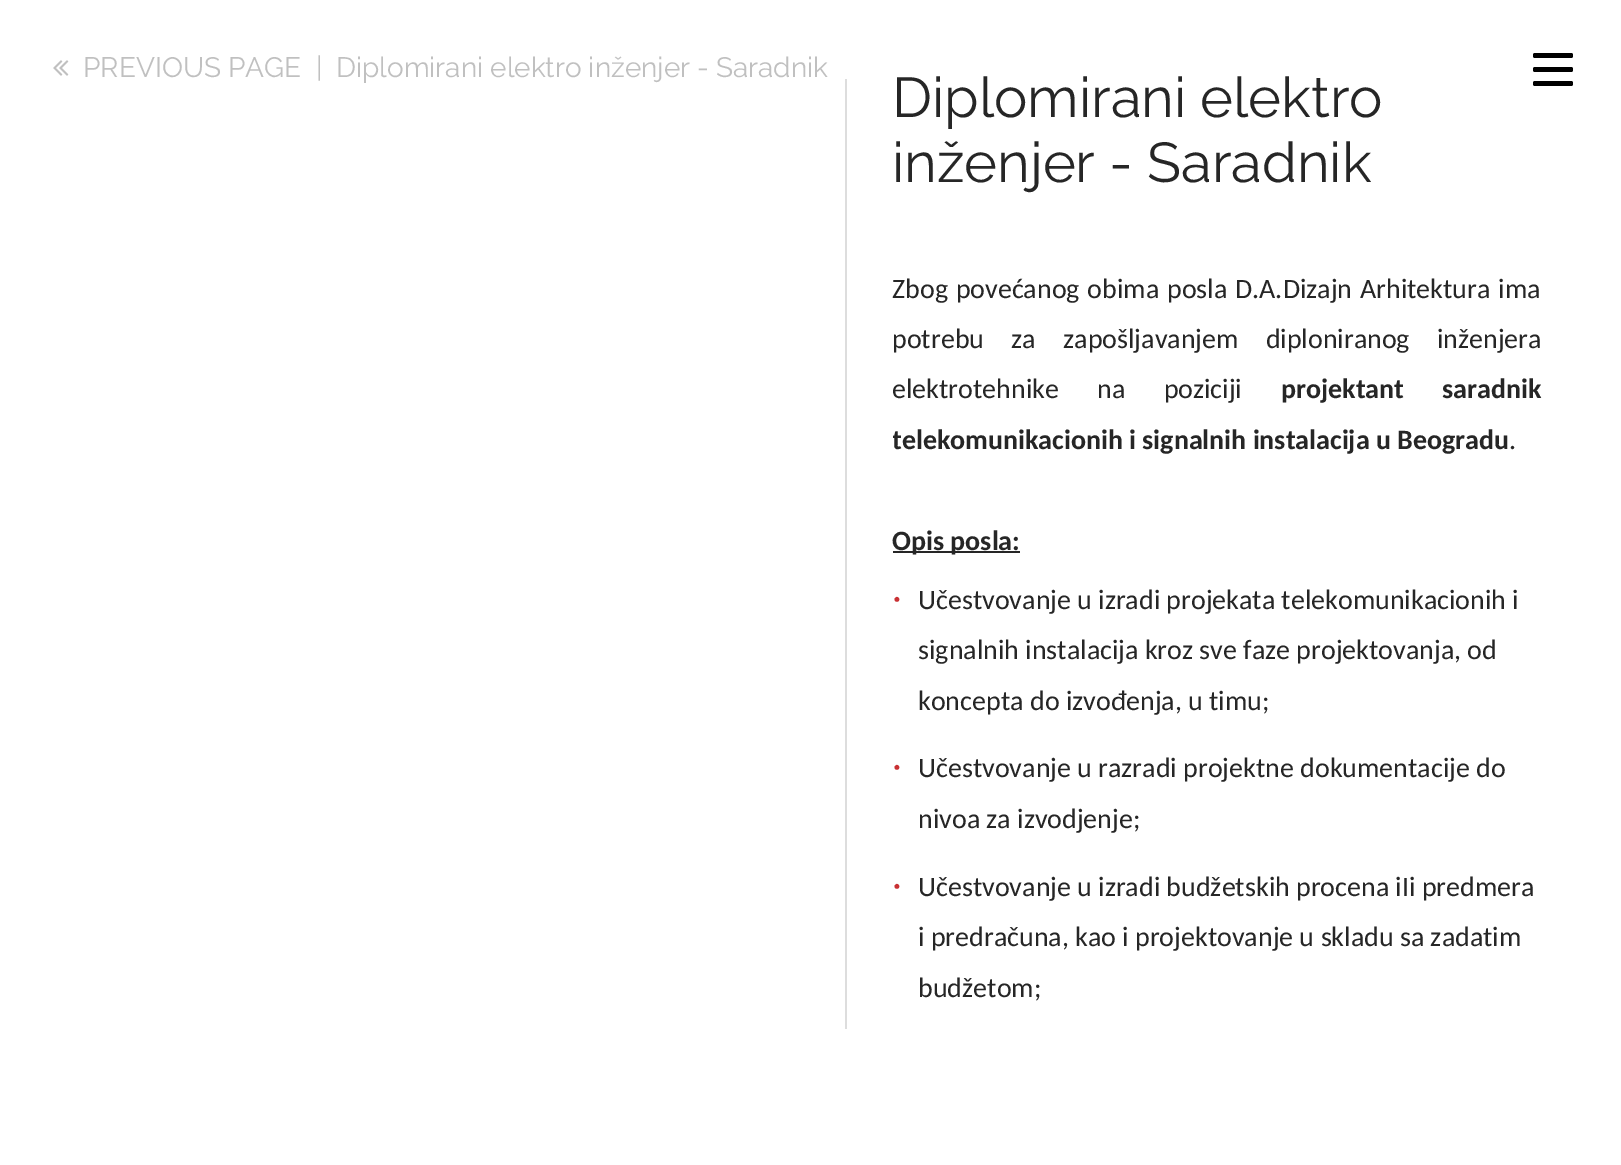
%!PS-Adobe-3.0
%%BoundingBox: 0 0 1621 1165
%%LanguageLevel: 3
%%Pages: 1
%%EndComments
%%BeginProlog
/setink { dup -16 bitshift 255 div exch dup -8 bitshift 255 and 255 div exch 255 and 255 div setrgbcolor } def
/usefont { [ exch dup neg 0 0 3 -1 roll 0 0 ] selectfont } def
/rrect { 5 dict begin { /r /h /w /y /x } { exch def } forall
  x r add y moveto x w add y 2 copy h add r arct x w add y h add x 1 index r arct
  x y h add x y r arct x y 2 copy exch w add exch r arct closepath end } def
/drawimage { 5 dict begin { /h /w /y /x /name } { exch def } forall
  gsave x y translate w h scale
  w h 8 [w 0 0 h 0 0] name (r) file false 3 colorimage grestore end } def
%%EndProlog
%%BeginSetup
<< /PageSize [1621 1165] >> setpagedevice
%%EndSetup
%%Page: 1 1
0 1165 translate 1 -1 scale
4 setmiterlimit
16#FFFFFF setink
0 0 1621 1165 rectfill
(img1.raw) 53 60 16 16 drawimage
/Raleway-Regular 28 usefont
16#C0C0C0 setink
[
    [(PREVIOUS PAGE) 83 77]
    [(|) 316 77]
    [(Diplomirani elektro inženjer - Saradnik) 336 77]
] { aload pop moveto show } forall
16#DDDDDD setink
845 79 2 950 rectfill
/Raleway-Regular 56 usefont
16#262626 setink
892 117 moveto (Diplomirani elektro) show
892 182 moveto (inženjer - Saradnik) show
/Carlito-Regular 28 usefont
892 298 moveto 1.5 0 32 (Zbog povećanog obima posla D.A.Dizajn Arhitektura ima) widthshow
892 348 moveto 21 0 32 (potrebu za zapošljavanjem diploniranog inženjera) widthshow
892 398 moveto 32 0 32 (elektrotehnike na poziciji) widthshow
/Carlito-Bold 28 usefont
1281 398 moveto 32 0 32 (projektant saradnik) widthshow
gsave
893 65 649 973 rectclip
892 449 moveto (telekomunikacionih i signalnih instalacija u Beogradu) show
grestore
/Carlito-Regular 28 usefont
1509 449 moveto (.) show
893 551 127 2 rectfill
/Carlito-Bold 28 usefont
892 550 moveto (Opis posla:) show
/Raleway-Regular 28 usefont
16#C93134 setink
892 609 moveto (•) show
/Carlito-Regular 28 usefont
16#262626 setink
[
    [(Učestvovanje u izradi projekata telekomunikacionih i) 918 609]
    [(signalnih instalacija kroz sve faze projektovanja, od) 918 659]
    [(koncepta do izvođenja, u timu;) 918 710]
] { aload pop moveto show } forall
/Raleway-Regular 28 usefont
16#C93134 setink
892 777 moveto (•) show
/Carlito-Regular 28 usefont
16#262626 setink
918 777 moveto (Učestvovanje u razradi projektne dokumentacije do) show
918 828 moveto (nivoa za izvodjenje;) show
/Raleway-Regular 28 usefont
16#C93134 setink
892 896 moveto (•) show
/Carlito-Regular 28 usefont
16#262626 setink
[
    [(Učestvovanje u izradi budžetskih procena iIi predmera) 918 896]
    [(i predračuna, kao i projektovanje u skladu sa zadatim) 918 946]
    [(budžetom;) 918 997]
] { aload pop moveto show } forall
16#000000 setink
1533 53 40 5 2 rrect fill
1533 67 40 5 2 rrect fill
1533 81 40 5 2 rrect fill
showpage
%%EOF
